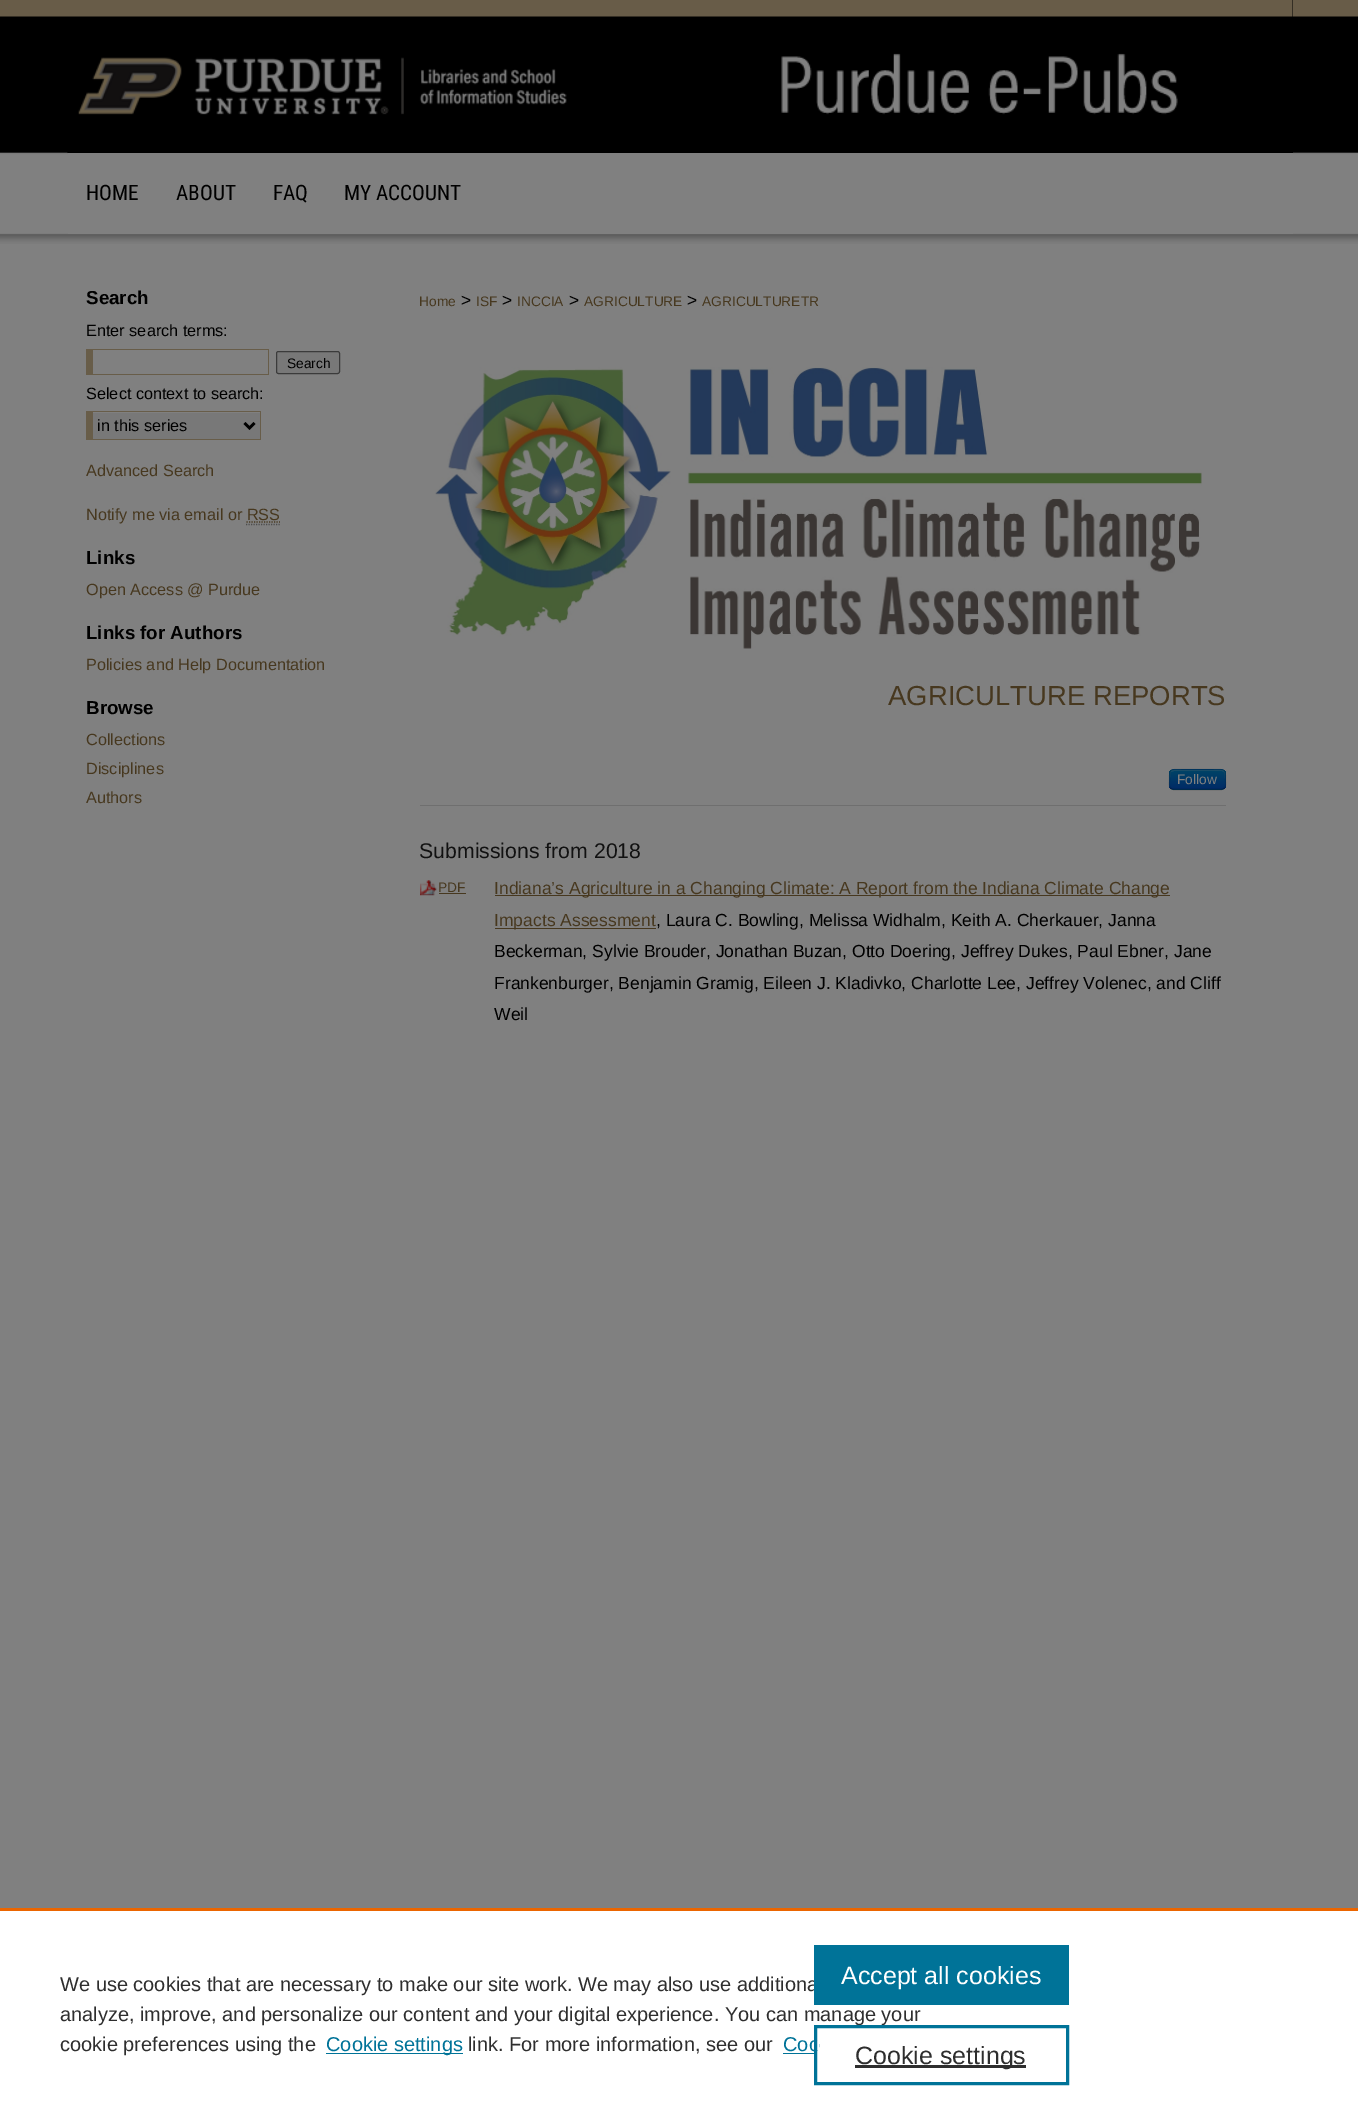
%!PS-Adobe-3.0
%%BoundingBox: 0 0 1358 2120
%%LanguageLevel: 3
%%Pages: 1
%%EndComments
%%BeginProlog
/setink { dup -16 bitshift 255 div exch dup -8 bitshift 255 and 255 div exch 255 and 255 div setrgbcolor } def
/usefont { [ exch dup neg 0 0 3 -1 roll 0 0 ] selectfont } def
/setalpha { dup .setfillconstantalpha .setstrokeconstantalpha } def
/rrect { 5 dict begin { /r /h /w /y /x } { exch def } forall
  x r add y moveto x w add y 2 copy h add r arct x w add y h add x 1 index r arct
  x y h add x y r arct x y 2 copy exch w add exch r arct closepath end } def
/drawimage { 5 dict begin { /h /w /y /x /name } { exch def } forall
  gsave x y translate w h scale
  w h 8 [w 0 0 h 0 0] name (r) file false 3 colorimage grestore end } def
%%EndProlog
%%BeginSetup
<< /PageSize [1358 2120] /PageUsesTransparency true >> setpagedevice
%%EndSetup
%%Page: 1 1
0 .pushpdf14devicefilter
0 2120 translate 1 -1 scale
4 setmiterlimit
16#808080 setink
0 0 1358 2120 rectfill
(img1.raw) 0 0 1358 244 drawimage
16#000000 setink
68 0 1225 153 rectfill
(img2.raw) 67 0 1226 153 drawimage
16#0E0E0E setink
67 152 1 1 rectfill
16#808080 setink
68 153 1225 81 rectfill
/RobotoCondensed-Regular 21.25 usefont
16#000000 setink
[
    [(HOME) 86 200]
    [(ABOUT) 176 200]
    [(FAQ) 273 200]
    [(MY ACCOUNT) 344 200]
] { aload pop moveto show } forall
/LiberationSans-Bold 18.75 usefont
86 304 moveto (Search) show
/LiberationSans-Regular 16.25 usefont
86 336 moveto (Enter search terms:) show
[
    [86 349 183 1 16#685D49]
    [268 349 1 26 16#685D49]
    [86 374 183 1 16#685D49]
    [86 349 7 26 16#685D49]
] { aload pop setink rectfill } forall
16#787878 setink
276.5 351.5 63 22 2 rrect gsave fill grestore
16#3B3B3B setink
stroke
/LiberationSans-Regular 13.75 usefont
16#000000 setink
287 368 moveto (Search) show
/LiberationSans-Regular 16.25 usefont
86 399 moveto (Select context to search:) show
[
    [93 413 167 26 16#787878]
    [86 411 175 1 16#685D49]
    [260 411 1 29 16#685D49]
    [86 439 175 1 16#685D49]
    [86 411 7 29 16#685D49]
] { aload pop setink rectfill } forall
16#000000 setink
2.5 setlinewidth
244.5 423 moveto 249.5 428 lineto 254.5 423 lineto stroke
97 431 moveto (in this series) show
16#47381F setink
86 476 moveto (Advanced Search) show
86 520 moveto (Notify me via email or RSS) show
1.2 setlinewidth
[1.25 1.25] 0 setdash
246.5 522 moveto 280 522 lineto stroke
16#4D4D4D setink
246 524.5 moveto 280 524.5 lineto stroke
/LiberationSans-Bold 18.75 usefont
16#000000 setink
86 564 moveto (Links) show
/LiberationSans-Regular 16.25 usefont
16#47381F setink
86 595 moveto (Open Access @ Purdue) show
/LiberationSans-Bold 18.75 usefont
16#000000 setink
86 639 moveto (Links for Authors) show
/LiberationSans-Regular 16.25 usefont
16#47381F setink
86 670 moveto (Policies and Help Documentation) show
/LiberationSans-Bold 18.75 usefont
16#000000 setink
86 714 moveto (Browse) show
/LiberationSans-Regular 16.25 usefont
16#47381F setink
[
    [(Collections) 86 745]
    [(Disciplines) 86 774]
    [(Authors) 86 803]
] { aload pop moveto show } forall
/LiberationSans-Regular 13.75 usefont
419 306 moveto (Home) show
/LiberationSans-Regular 17.5 usefont
16#000000 setink
461 306 moveto (>) show
/LiberationSans-Regular 13.75 usefont
16#47381F setink
476 306 moveto (ISF) show
/LiberationSans-Regular 17.5 usefont
16#000000 setink
502 306 moveto (>) show
/LiberationSans-Regular 13.75 usefont
16#47381F setink
517 306 moveto (INCCIA) show
/LiberationSans-Regular 17.5 usefont
16#000000 setink
569 306 moveto (>) show
/LiberationSans-Regular 13.75 usefont
16#47381F setink
584 306 moveto (AGRICULTURE) show
/LiberationSans-Regular 17.5 usefont
16#000000 setink
687 306 moveto (>) show
/LiberationSans-Regular 13.75 usefont
16#47381F setink
702 306 moveto (AGRICULTURETR) show
(img3.raw) 435 367 767 282 drawimage
/LiberationSans-Regular 27.5 usefont
888 705 moveto (AGRICULTURE REPORTS) show
16#6F6F6F setink
420 805 806 1 rectfill
16#003A66 setink
1169 769 57 21 5 rrect fill
gsave
1169 769 57 21 5 rrect clip newpath
gsave 1169 770 moveto 1226 770 lineto 1226 789 lineto 1169 789 lineto closepath clip newpath
<< /ShadingType 2 /ColorSpace /DeviceRGB /Coords [1198 770 1198 789] /Extend [true true] /Function << /FunctionType 2 /Domain [0 1] /C0 [0 0.267 0.4] /C1 [0 0.169 0.4] /N 1 >> >> shfill grestore
grestore
0.2 setalpha
16#808080 setink
1174 771 moveto 1218 771 lineto 1225 770 1225 773 1225 779 curveto 1225 786 lineto 1225 778 lineto 1225 768 1223 770 1213 770 curveto 1182 770 lineto 1172 770 1170 768 1170 778 curveto 1170 787 lineto 1170 784 1169 774 1171 772 curveto closepath fill
0.25 setalpha
16#000000 setink
[] 0 setdash
1224.5 788 moveto 1223.5 789 1222.5 789.5 1221 789.5 curveto 1174 789.5 lineto 1172.5 789.5 1171.5 789 1170.5 788 curveto stroke
0.1 setalpha
1170.5 788 moveto 1168.5 786 1169.5 782 1169.5 779.5 curveto 1169.5 768.5 1170 769.5 1181.5 769.5 curveto 1213.5 769.5 lineto 1225 769.5 1225.5 768.5 1225.5 779.5 curveto 1225.5 782 1226.5 786 1224.5 788 curveto stroke
/LiberationSans-Regular 13.75 usefont
1 setalpha
16#808080 setink
1177 784 moveto (Follow) show
/LiberationSans-Regular 21.25 usefont
16#111111 setink
419 858 moveto (Submissions from 2018) show
(img4.raw) 420 880 17 16 drawimage
/LiberationSans-Regular 13.75 usefont
16#47381F setink
438 892 moveto (PDF) show
439 893 27 1 rectfill
495 895 675 1 rectfill
/LiberationSans-Regular 17.5 usefont
494 894 moveto (Indiana’s Agriculture in a Changing Climate: A Report from the Indiana Climate Change) show
495 928 161 1 rectfill
494 926 moveto (Impacts Assessment) show
16#000000 setink
[
    [(, Laura C. Bowling, Melissa Widhalm, Keith A. Cherkauer, Janna) 656 926]
    [(Beckerman, Sylvie Brouder, Jonathan Buzan, Otto Doering, Jeffrey Dukes, Paul Ebner, Jane) 494 957]
    [(Frankenburger, Benjamin Gramig, Eileen J. Kladivko, Charlotte Lee, Jeffrey Volenec, and Cliff) 494 989]
    [(Weil) 494 1020]
] { aload pop moveto show } forall
16#FFFFFF setink
0 1911 1358 209 rectfill
16#EB6500 setink
0 1908 1358 3 rectfill
/LiberationSans-Regular 20 usefont
16#2E2E2E setink
[
    [(We use cookies that are necessary to make our site work. We may also use additiona) 60 1991]
    [(analyze, improve, and personalize our content and your digital experience. You can manage your) 60 2021]
    [(cookie preferences using the) 60 2051]
] { aload pop moveto show } forall
16#007398 setink
326 2053 137 1 rectfill
326 2051 moveto (Cookie settings) show
16#2E2E2E setink
468 2051 moveto (link. For more information, see our) show
16#007398 setink
783 2051 moveto (Coo) show
783 2053 31 1 rectfill
814 1945 255 60 rectfill
/LiberationSans-Regular 25 usefont
16#FFFFFF setink
841 1984 moveto (Accept all cookies) show
817 2041 2 9 rectfill
16#007398 setink
3 setlinewidth
815.5 2026.5 252 57 rectstroke
16#2E2E2E setink
855 2065 171 3 rectfill
855 2064 moveto (Cookie settings) show
.poppdf14devicefilter showpage
%%EOF
